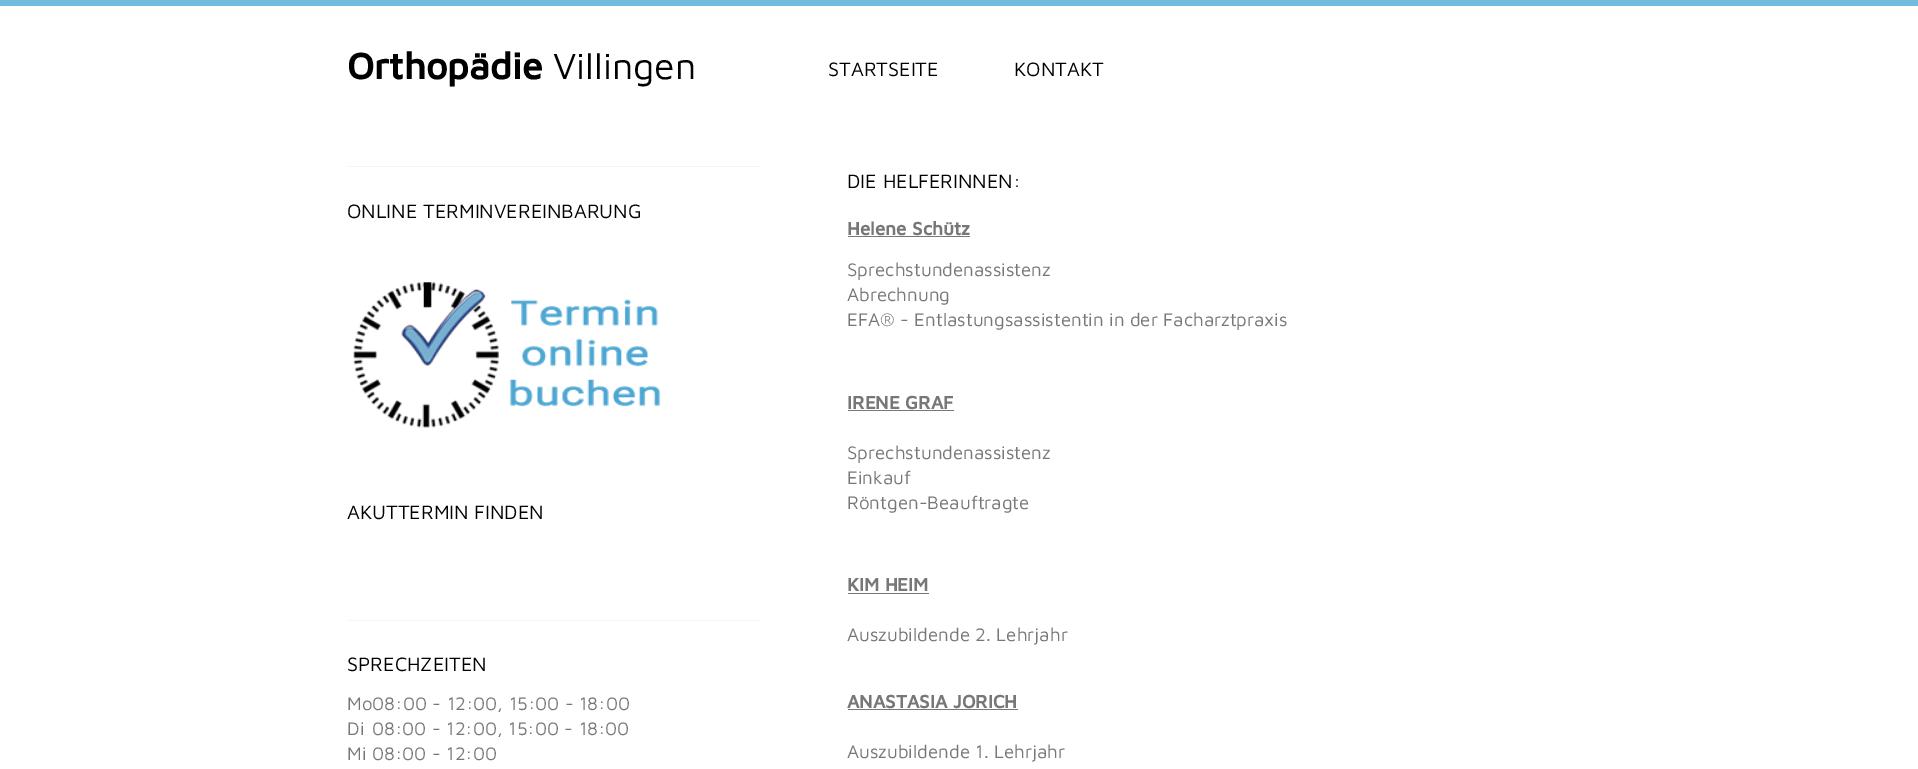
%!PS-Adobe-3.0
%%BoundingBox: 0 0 1918 769
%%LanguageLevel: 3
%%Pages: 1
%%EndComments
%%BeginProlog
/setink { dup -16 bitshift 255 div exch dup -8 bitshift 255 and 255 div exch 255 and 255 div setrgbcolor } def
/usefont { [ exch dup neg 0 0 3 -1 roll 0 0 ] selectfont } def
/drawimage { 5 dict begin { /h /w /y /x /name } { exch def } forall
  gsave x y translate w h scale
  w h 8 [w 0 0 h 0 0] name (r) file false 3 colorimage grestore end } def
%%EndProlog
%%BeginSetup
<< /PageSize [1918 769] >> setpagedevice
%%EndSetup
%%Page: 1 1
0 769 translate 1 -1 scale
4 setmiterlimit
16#FFFFFF setink
0 0 1918 769 rectfill
16#72BBDC setink
0 0 1918 6 rectfill
/MavenPro-Bold 37.5 usefont
16#000000 setink
347 79 moveto (Orthopädie) show
/MavenPro-Regular 37.5 usefont
553 79 moveto (Villingen) show
/MavenPro-Regular 20 usefont
828 76 moveto (STARTSEITE) show
1014 76 moveto (KONTAKT) show
16#F5F5F5 setink
348 166 412 1 rectfill
16#000000 setink
347 218 moveto (ONLINE TERMINVEREINBARUNG) show
(img1.raw) 353 282 308 146 drawimage
347 519 moveto (AKUTTERMIN FINDEN) show
16#F5F5F5 setink
348 620 412 1 rectfill
16#000000 setink
347 671 moveto (SPRECHZEITEN) show
/MavenPro-Regular 18.75 usefont
16#777777 setink
[
    [(Mo08:00 - 12:00, 15:00 - 18:00) 347 710]
    [(Di) 347 735]
    [(08:00 - 12:00, 15:00 - 18:00) 372 735]
    [(Mi) 347 760]
    [(08:00 - 12:00) 372 760]
] { aload pop moveto show } forall
/MavenPro-Regular 20 usefont
16#000000 setink
847 188 moveto (DIE HELFERINNEN:) show
/MavenPro-Bold 18.75 usefont
16#777777 setink
847 235 moveto (Helene Schütz) show
848 236 122 1 rectfill
/MavenPro-Regular 18.75 usefont
[
    [(Sprechstundenassistenz) 847 276]
    [(Abrechnung) 847 301]
    [(EFA® - Entlastungsassistentin in der Facharztpraxis) 847 326]
] { aload pop moveto show } forall
/MavenPro-Bold 18.75 usefont
847 409 moveto (IRENE GRAF) show
848 410 106 1 rectfill
/MavenPro-Regular 18.75 usefont
[
    [(Sprechstundenassistenz) 847 459]
    [(Einkauf) 847 484]
    [(Röntgen-Beauftragte) 847 509]
] { aload pop moveto show } forall
/MavenPro-Bold 18.75 usefont
847 591 moveto (KIM HEIM) show
848 593 81 1 rectfill
/MavenPro-Regular 18.75 usefont
847 641 moveto (Auszubildende 2. Lehrjahr) show
/MavenPro-Bold 18.75 usefont
847 708 moveto (ANASTASIA JORICH) show
848 709 170 1 rectfill
/MavenPro-Regular 18.75 usefont
847 758 moveto (Auszubildende 1. Lehrjahr) show
showpage
%%EOF
